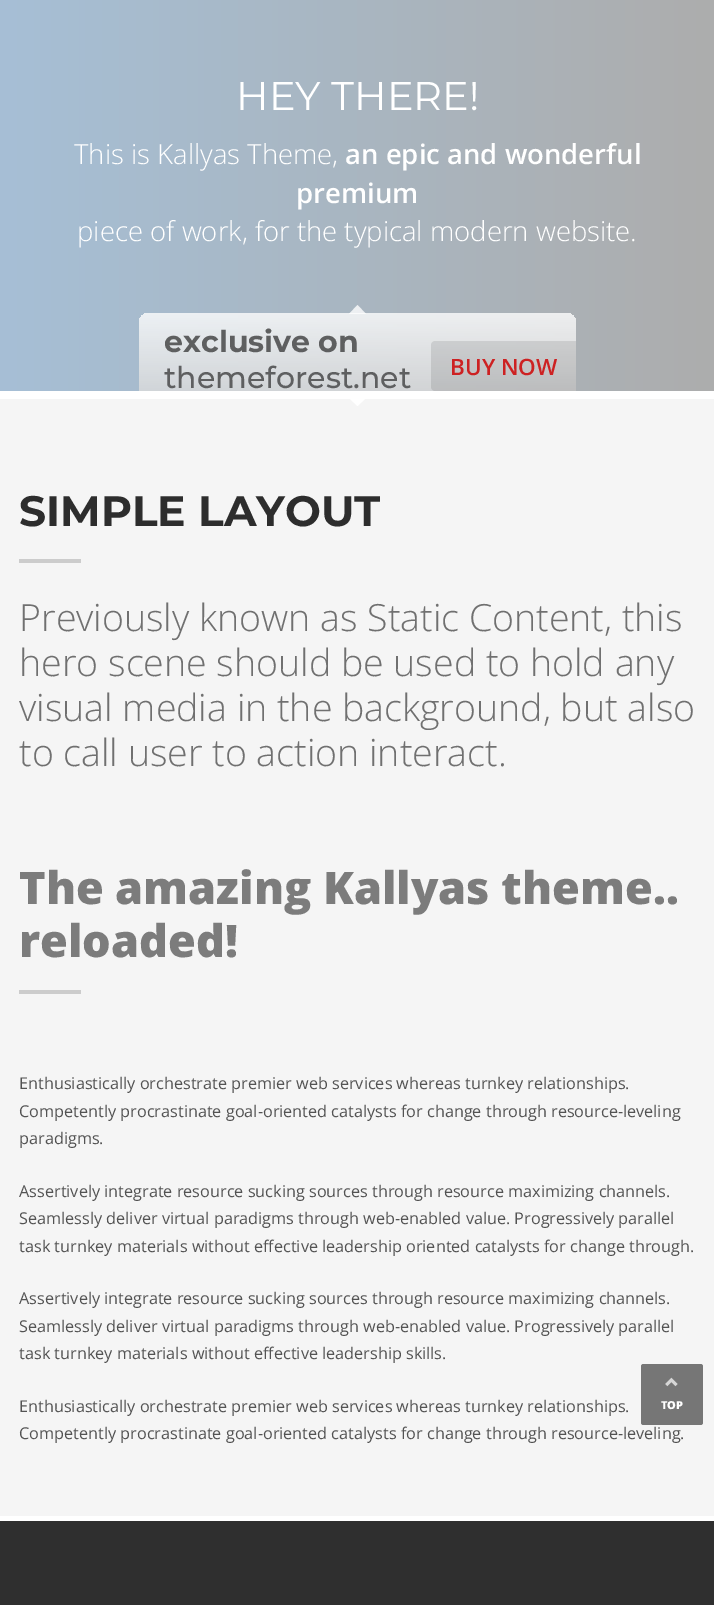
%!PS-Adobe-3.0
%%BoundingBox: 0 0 714 1605
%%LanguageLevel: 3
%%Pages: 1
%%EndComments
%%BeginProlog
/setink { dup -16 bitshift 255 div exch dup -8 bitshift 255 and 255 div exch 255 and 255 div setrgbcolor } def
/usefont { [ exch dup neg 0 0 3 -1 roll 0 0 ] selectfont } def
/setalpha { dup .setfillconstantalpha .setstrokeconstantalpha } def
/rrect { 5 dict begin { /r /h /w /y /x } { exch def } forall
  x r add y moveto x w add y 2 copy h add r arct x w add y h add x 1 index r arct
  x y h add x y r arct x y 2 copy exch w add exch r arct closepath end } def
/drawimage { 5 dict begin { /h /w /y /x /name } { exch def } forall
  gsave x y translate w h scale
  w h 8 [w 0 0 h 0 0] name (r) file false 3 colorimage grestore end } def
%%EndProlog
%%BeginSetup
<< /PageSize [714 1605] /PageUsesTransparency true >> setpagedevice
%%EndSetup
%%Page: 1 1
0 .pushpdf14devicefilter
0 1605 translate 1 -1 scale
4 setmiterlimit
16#F5F5F5 setink
0 0 714 1605 rectfill
gsave 0 0 moveto 714 0 lineto 714 391 lineto 0 391 lineto closepath clip newpath
<< /ShadingType 2 /ColorSpace /DeviceRGB /Coords [0 54 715 54] /Extend [true true] /Function << /FunctionType 2 /Domain [0 1] /C0 [0.651 0.749 0.839] /C1 [0.678 0.678 0.678] /N 1 >> >> shfill grestore
/Montserrat-Regular 40 usefont
16#FFFFFF setink
236 110 moveto (HEY THERE!) show
/OpenSans-Light 27.5 usefont
74 164 moveto (This is Kallyas Theme,) show
/OpenSans-SemiBold 27.5 usefont
345 164 moveto (an epic and wonderful) show
296 203 moveto (premium) show
/OpenSans-Light 27.5 usefont
77 241 moveto (piece of work, for the typical modern website.) show
0.8 setalpha
gsave 149 313 moveto 566 313 lineto 571.5 313 576 317.5 576 323 curveto 576 399 lineto 139 399 lineto 139 323 lineto 139 317.5 143.5 313 149 313 curveto closepath clip newpath
<< /ShadingType 2 /ColorSpace /DeviceRGB /Coords [358 312 358 416] /Extend [true true] /Function << /FunctionType 2 /Domain [0 1] /C0 [0.996 0.996 0.996] /C1 [0.82 0.82 0.82] /N 1 >> >> shfill grestore
16#FEFEFE setink
366 314 moveto 349 314 lineto 357.5 305 lineto closepath fill
/Montserrat-Bold 30 usefont
1 setalpha
16#5E5F60 setink
164 352 moveto (exclusive on) show
/Montserrat-Medium 30 usefont
164 388 moveto (themeforest.net) show
0.1 setalpha
16#000000 setink
435 341 moveto 576 341 lineto 576 391 lineto 435 391 lineto 433 391 431 389 431 387 curveto 431 345 lineto 431 343 433 341 435 341 curveto closepath fill
/OpenSans-SemiBold 22.5 usefont
1 setalpha
16#CD2122 setink
450 375 moveto (BUY NOW) show
16#FFFFFF setink
0 391 714 8 rectfill
350 399 moveto 365 399 lineto 357.5 406 lineto closepath fill
/Montserrat-Bold 42.5 usefont
16#2D2D2D setink
19 526 moveto (SIMPLE LAYOUT) show
16#CCCCCC setink
19 559 62 4 rectfill
/OpenSans-Light 37.5 usefont
16#707070 setink
[
    [(Previously known as Static Content, this) 19 631]
    [(hero scene should be used to hold any) 19 676]
    [(visual media in the background, but also) 19 721]
    [(to call user to action interact.) 19 766]
] { aload pop moveto show } forall
/OpenSans-ExtraBold 45 usefont
16#7C7C7C setink
19 904 moveto (The amazing Kallyas theme..) show
19 957 moveto (reloaded!) show
16#CCCCCC setink
19 990 62 4 rectfill
/OpenSans-Regular 16.25 usefont
16#535353 setink
[
    [(Enthusiastically orchestrate premier web services whereas turnkey relationships.) 19 1089]
    [(Competently procrastinate goal-oriented catalysts for change through resource-leveling) 19 1117]
    [(paradigms.) 19 1144]
    [(Assertively integrate resource sucking sources through resource maximizing channels.) 19 1197]
    [(Seamlessly deliver virtual paradigms through web-enabled value. Progressively parallel) 19 1224]
    [(task turnkey materials without effective leadership oriented catalysts for change through.) 19 1252]
    [(Assertively integrate resource sucking sources through resource maximizing channels.) 19 1304]
    [(Seamlessly deliver virtual paradigms through web-enabled value. Progressively parallel) 19 1332]
    [(task turnkey materials without effective leadership skills.) 19 1359]
    [(Enthusiastically orchestrate premier web services whereas turnkey relationships.) 19 1412]
    [(Competently procrastinate goal-oriented catalysts for change through resource-leveling.) 19 1439]
] { aload pop moveto show } forall
16#2F2F2F setink
0 1521 714 84 rectfill
16#FFFFFF setink
0 1516 714 5 rectfill
16#767676 setink
641 1364 62 61 2.5 rrect fill
(img1.raw) 665 1377 13 10 drawimage
/OpenSans-ExtraBold 11 usefont
16#FFFFFF setink
661 1409 moveto (TOP) show
.poppdf14devicefilter showpage
%%EOF
